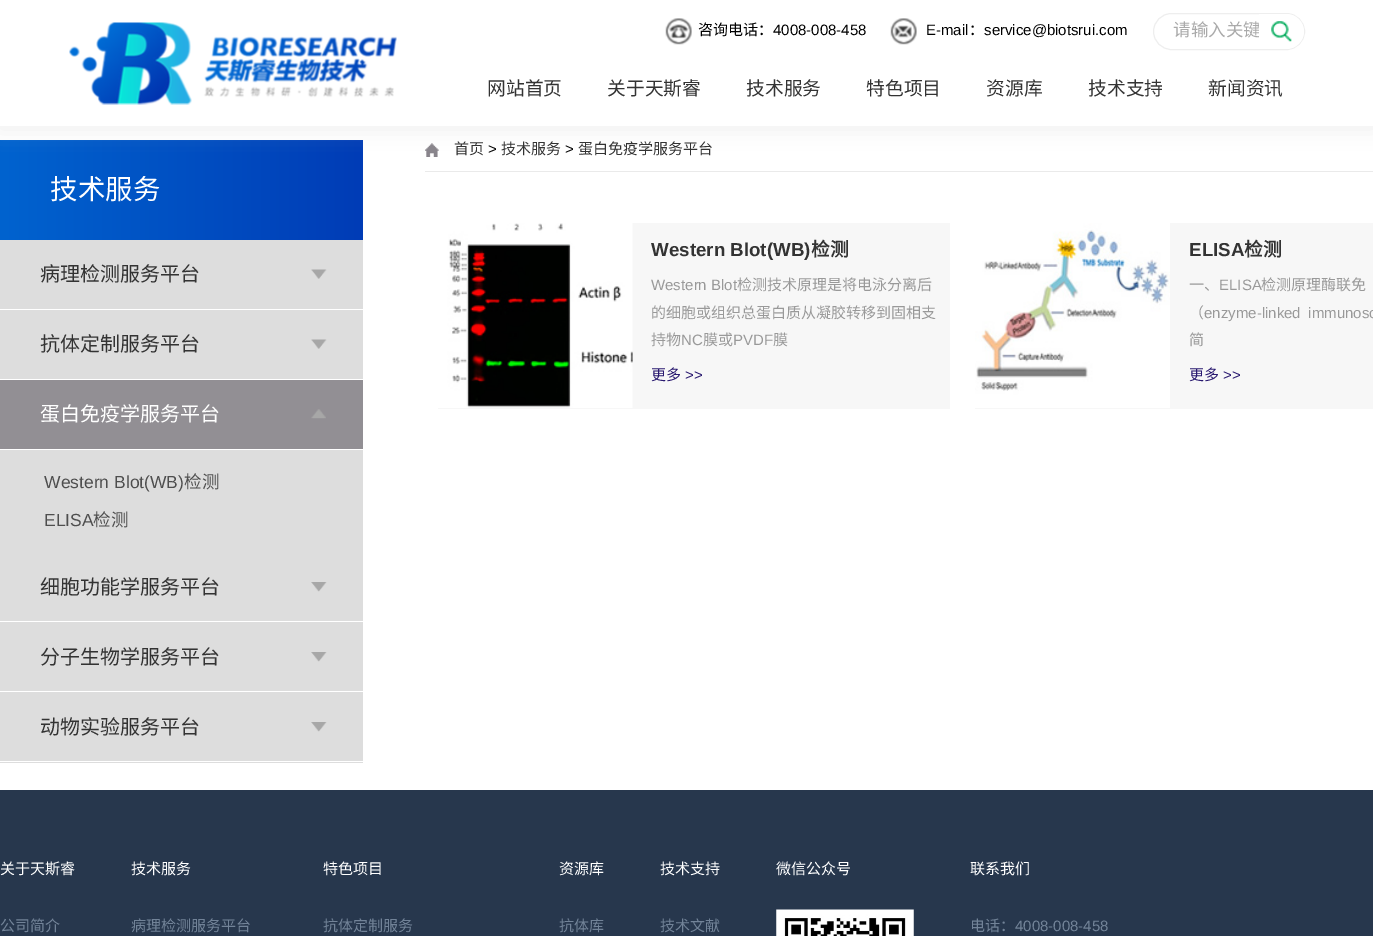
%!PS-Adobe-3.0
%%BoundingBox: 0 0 1373 936
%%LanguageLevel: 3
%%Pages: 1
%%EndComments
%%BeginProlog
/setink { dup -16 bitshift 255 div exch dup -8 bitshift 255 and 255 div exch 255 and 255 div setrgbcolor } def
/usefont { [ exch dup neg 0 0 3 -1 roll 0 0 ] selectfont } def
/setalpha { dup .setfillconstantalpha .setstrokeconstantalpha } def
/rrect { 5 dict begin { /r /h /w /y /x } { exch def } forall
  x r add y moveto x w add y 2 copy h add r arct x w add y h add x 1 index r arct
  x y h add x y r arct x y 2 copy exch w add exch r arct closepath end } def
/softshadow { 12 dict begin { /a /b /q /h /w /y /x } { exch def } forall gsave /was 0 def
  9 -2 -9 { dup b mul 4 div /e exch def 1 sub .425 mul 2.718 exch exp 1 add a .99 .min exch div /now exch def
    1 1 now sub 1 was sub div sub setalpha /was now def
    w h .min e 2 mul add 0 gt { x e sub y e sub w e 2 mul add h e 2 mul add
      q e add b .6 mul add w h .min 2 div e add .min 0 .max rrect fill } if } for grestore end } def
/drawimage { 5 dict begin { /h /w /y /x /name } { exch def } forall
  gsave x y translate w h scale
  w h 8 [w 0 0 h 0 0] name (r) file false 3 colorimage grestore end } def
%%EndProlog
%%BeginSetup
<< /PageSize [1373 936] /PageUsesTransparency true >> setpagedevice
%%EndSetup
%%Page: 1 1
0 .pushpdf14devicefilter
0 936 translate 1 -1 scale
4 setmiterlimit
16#FFFFFF setink
0 0 1373 936 rectfill
gsave 0 140 moveto 363 140 lineto 363 240 lineto 0 240 lineto closepath clip newpath
<< /ShadingType 2 /ColorSpace /DeviceRGB /Coords [0 190 363 190] /Extend [true true] /Function << /FunctionType 2 /Domain [0 1] /C0 [0 0.388 0.812] /C1 [0.004 0.235 0.714] /N 1 >> >> shfill grestore
(img8.raw) 425 143 14 14 drawimage
16#CECECE setink
-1 -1 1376 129 0 10.5 0.35 softshadow
16#FFFFFF setink
0 0 1373 126 rectfill
(img1.raw) 69 22 328 83 drawimage
(img2.raw) 665 18 27 27 drawimage
/NotoSansCJKSC-Regular 15 usefont
16#000000 setink
698 35 moveto (咨询电话：) show
/LiberationSans-Regular 15 usefont
773 35 moveto (4008-008-458) show
(img3.raw) 890 18 27 27 drawimage
926 35 moveto (E-mail) show
/NotoSansCJKSC-Regular 15 usefont
969 35 moveto (：) show
/LiberationSans-Regular 15 usefont
984 35 moveto (service@biotsrui.com) show
16#EEEEEE setink
1153.5 13.5 151 36 18 rrect stroke
/NotoSansCJKSC-Regular 17.5 usefont
16#AAAAAA setink
1173 36 moveto (请输入关键) show
16#FFFFFF setink
1259 14 moveto 1286.5 14 lineto 1296 14 1304 22 1304 31.5 curveto 1304 41 1296 49 1286.5 49 curveto 1259 49 lineto closepath fill
(img4.raw) 1271 21 21 21 drawimage
/NotoSansCJKSC-Regular 18.75 usefont
16#333333 setink
[
    [(网站首页) 487 95]
    [(关于天斯睿) 607 95]
    [(技术服务) 746 95]
    [(特色项目) 866 95]
    [(资源库) 986 95]
    [(技术支持) 1088 95]
    [(新闻资讯) 1208 95]
] { aload pop moveto show } forall
16#DDDDDD setink
0 240 363 523 rectfill
/NotoSansCJKSC-Regular 27.5 usefont
16#FFFFFF setink
50 199 moveto (技术服务) show
0 309 363 1 rectfill
/NotoSansCJKSC-Regular 20 usefont
16#333333 setink
40 281 moveto (病理检测服务平台) show
(img5.raw) 311 269 16 10 drawimage
16#FFFFFF setink
0 379 363 1 rectfill
16#333333 setink
40 351 moveto (抗体定制服务平台) show
(img5.raw) 311 339 16 10 drawimage
16#928F94 setink
0 380 363 69 rectfill
16#FFFFFF setink
0 449 363 1 rectfill
40 421 moveto (蛋白免疫学服务平台) show
(img6.raw) 311 409 15 10 drawimage
/LiberationSans-Regular 17.5 usefont
16#4E4E4E setink
44 488 moveto (Western Blot\(WB\)) show
/NotoSansCJKSC-Regular 17.5 usefont
184 488 moveto (检测) show
/LiberationSans-Regular 17.5 usefont
44 526 moveto (ELISA) show
/NotoSansCJKSC-Regular 17.5 usefont
93 526 moveto (检测) show
16#FFFFFF setink
0 621 363 1 rectfill
/NotoSansCJKSC-Regular 20 usefont
16#333333 setink
40 594 moveto (细胞功能学服务平台) show
(img7.raw) 311 582 16 10 drawimage
16#FFFFFF setink
0 691 363 1 rectfill
16#333333 setink
40 664 moveto (分子生物学服务平台) show
(img7.raw) 311 652 16 10 drawimage
16#FFFFFF setink
0 761 363 1 rectfill
16#333333 setink
40 734 moveto (动物实验服务平台) show
(img7.raw) 311 722 16 10 drawimage
16#EAEAEA setink
425 171 948 1 rectfill
/NotoSansCJKSC-Regular 15 usefont
16#333333 setink
454 154 moveto (首页) show
/LiberationSans-Regular 15 usefont
16#000000 setink
488 154 moveto (>) show
/NotoSansCJKSC-Regular 15 usefont
16#333333 setink
501 154 moveto (技术服务) show
/LiberationSans-Regular 15 usefont
16#000000 setink
565 154 moveto (>) show
/NotoSansCJKSC-Regular 15 usefont
16#333333 setink
578 154 moveto (蛋白免疫学服务平台) show
16#F7F7F7 setink
438 223 512 186 rectfill
(img9.raw) 438 223 195 185 drawimage
/LiberationSans-Bold 18.75 usefont
16#333333 setink
651 256 moveto (Western Blot\(WB\)) show
/NotoSansCJKSC-Bold 18.75 usefont
811 256 moveto (检测) show
/LiberationSans-Regular 15 usefont
16#999999 setink
651 290 moveto (Western Blot) show
/NotoSansCJKSC-Regular 15 usefont
[
    [(检测技术原理是将电泳分离后) 737 290]
    [(的细胞或组织总蛋白质从凝胶转移到固相支) 651 318]
    [(持物) 651 345]
] { aload pop moveto show } forall
/LiberationSans-Regular 15 usefont
681 345 moveto (NC) show
/NotoSansCJKSC-Regular 15 usefont
703 345 moveto (膜或) show
/LiberationSans-Regular 15 usefont
733 345 moveto (PVDF) show
/NotoSansCJKSC-Regular 15 usefont
773 345 moveto (膜) show
16#28186F setink
651 380 moveto (更多) show
/LiberationSans-Regular 15 usefont
685 380 moveto (>>) show
16#F7F7F7 setink
975 223 398 186 rectfill
(img10.raw) 975 223 195 185 drawimage
/LiberationSans-Bold 18.75 usefont
16#333333 setink
1189 256 moveto (ELISA) show
/NotoSansCJKSC-Bold 18.75 usefont
1244 256 moveto (检测) show
/NotoSansCJKSC-Regular 15 usefont
16#999999 setink
1189 290 moveto (一、) show
/LiberationSans-Regular 15 usefont
1219 290 moveto (ELISA) show
/NotoSansCJKSC-Regular 15 usefont
1261 290 moveto (检测原理酶联免) show
1189 318 moveto (（) show
/LiberationSans-Regular 15 usefont
1204 318 moveto (enzyme-linked immunoso) show
/NotoSansCJKSC-Regular 15 usefont
1189 345 moveto (简) show
16#28186F setink
1189 380 moveto (更多) show
/LiberationSans-Regular 15 usefont
1223 380 moveto (>>) show
16#27374D setink
0 790 1373 146 rectfill
/NotoSansCJKSC-Regular 15 usefont
16#FFFFFF setink
0 874 moveto (关于天斯睿) show
16#728398 setink
0 931 moveto (公司简介) show
16#FFFFFF setink
131 874 moveto (技术服务) show
16#728398 setink
131 931 moveto (病理检测服务平台) show
16#FFFFFF setink
323 874 moveto (特色项目) show
16#728398 setink
323 931 moveto (抗体定制服务) show
16#FFFFFF setink
559 874 moveto (资源库) show
16#728398 setink
559 931 moveto (抗体库) show
16#FFFFFF setink
660 874 moveto (技术支持) show
16#728398 setink
660 931 moveto (技术文献) show
16#FFFFFF setink
776 874 moveto (微信公众号) show
(img11.raw) 776 909 138 27 drawimage
970 874 moveto (联系我们) show
16#728398 setink
970 931 moveto (电话：) show
/LiberationSans-Regular 15 usefont
1015 931 moveto (4008-008-458) show
.poppdf14devicefilter showpage
%%EOF
